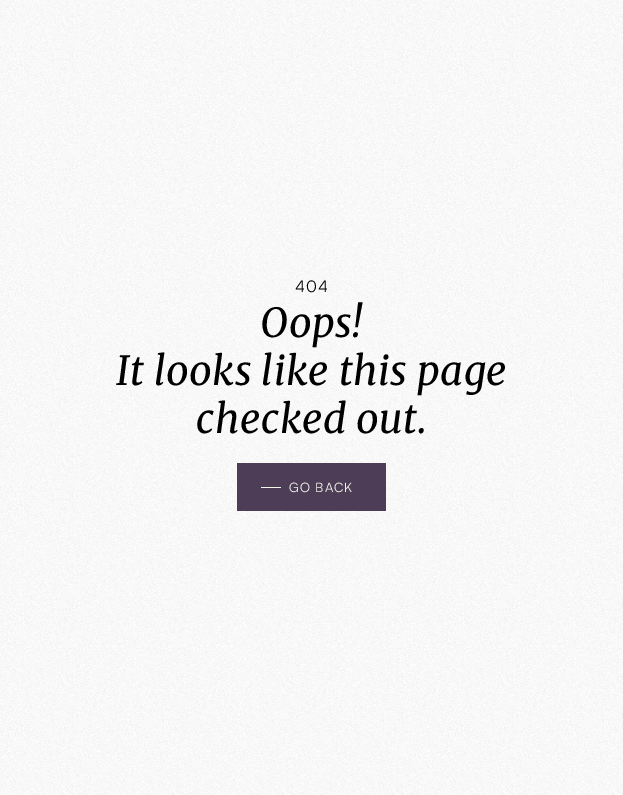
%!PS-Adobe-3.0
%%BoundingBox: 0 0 623 795
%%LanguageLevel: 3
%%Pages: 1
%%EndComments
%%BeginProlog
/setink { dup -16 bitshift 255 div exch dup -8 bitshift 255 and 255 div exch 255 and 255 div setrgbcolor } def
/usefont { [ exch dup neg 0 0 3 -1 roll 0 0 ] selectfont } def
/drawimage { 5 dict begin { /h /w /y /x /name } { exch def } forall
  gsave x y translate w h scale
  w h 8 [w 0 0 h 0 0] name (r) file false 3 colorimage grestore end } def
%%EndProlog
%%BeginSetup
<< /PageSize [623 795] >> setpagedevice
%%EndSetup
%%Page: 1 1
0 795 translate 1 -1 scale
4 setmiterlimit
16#FFFFFF setink
0 0 623 795 rectfill
(img1.raw) 0 0 623 795 drawimage
/Satoshi-Regular 16 usefont
16#000000 setink
295 292 moveto 1 0 (404) ashow
/Merriweather-Italic 40 usefont
260 337 moveto 0.5 0 (Oops!) ashow
116 385 moveto 0.5 0 (It looks like this page) ashow
196 433 moveto 0.5 0 (checked out.) ashow
16#4D3D56 setink
237 463 149 48 rectfill
16#F2F6EB setink
261 487 20 1 rectfill
/Satoshi-Regular 13 usefont
289 492 moveto 1 0 (GO BACK) ashow
showpage
%%EOF
